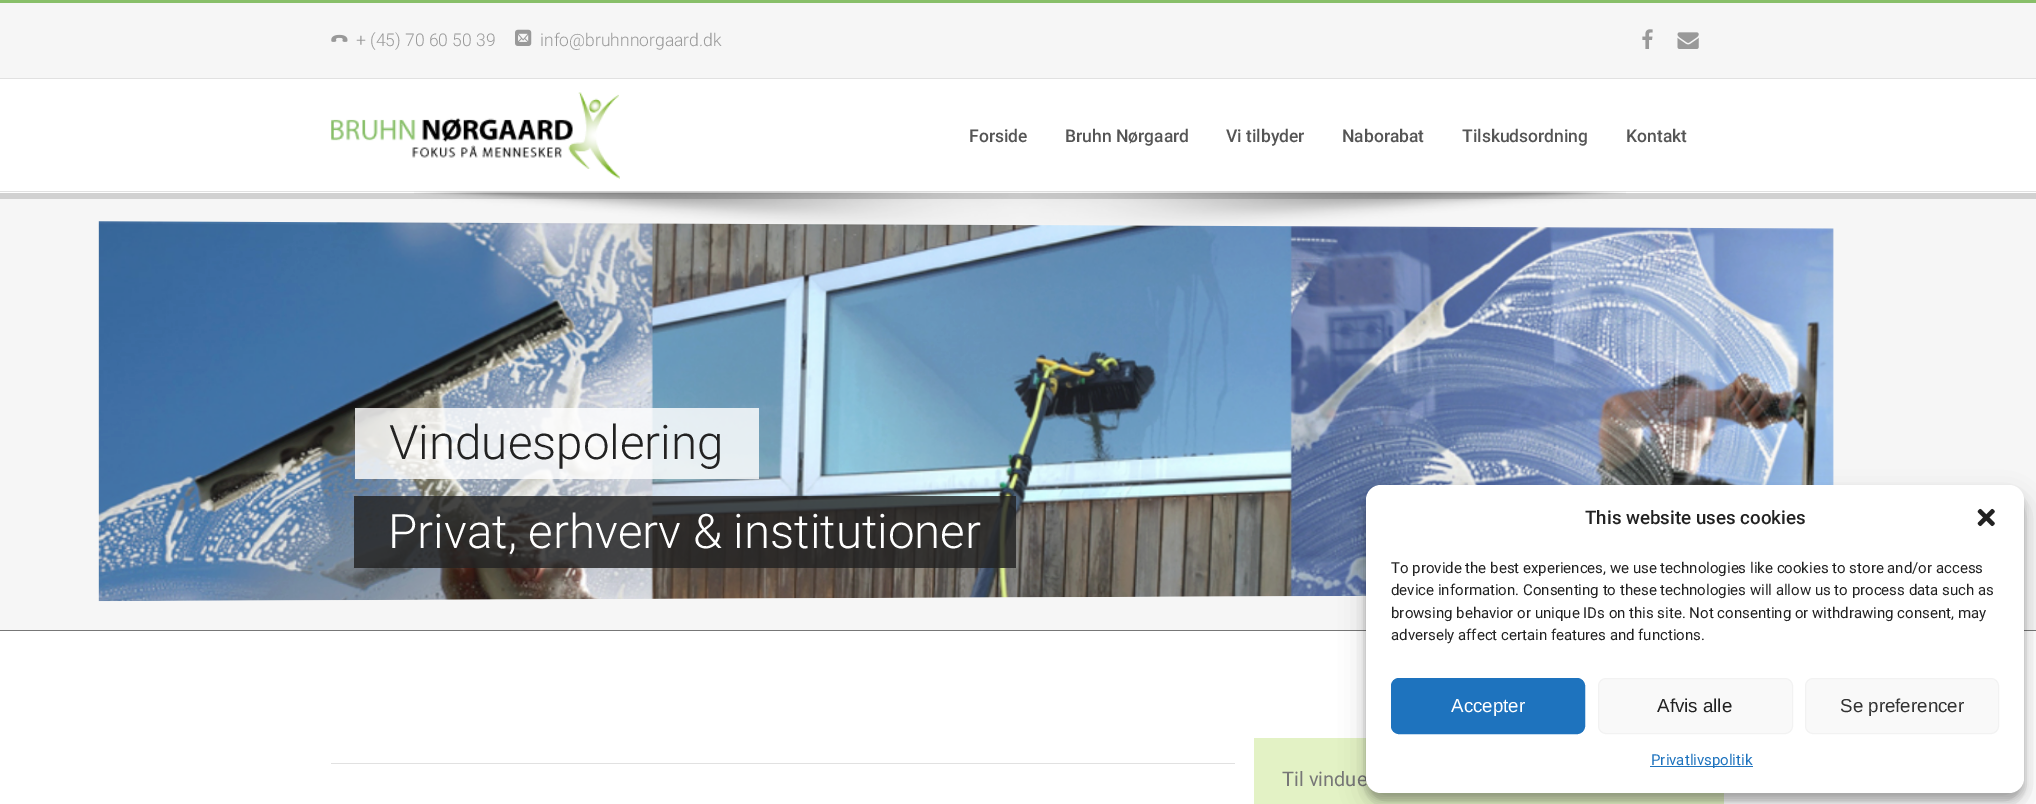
%!PS-Adobe-3.0
%%BoundingBox: 0 0 2036 804
%%LanguageLevel: 3
%%Pages: 1
%%EndComments
%%BeginProlog
/setink { dup -16 bitshift 255 div exch dup -8 bitshift 255 and 255 div exch 255 and 255 div setrgbcolor } def
/usefont { [ exch dup neg 0 0 3 -1 roll 0 0 ] selectfont } def
/setalpha { dup .setfillconstantalpha .setstrokeconstantalpha } def
/rrect { 5 dict begin { /r /h /w /y /x } { exch def } forall
  x r add y moveto x w add y 2 copy h add r arct x w add y h add x 1 index r arct
  x y h add x y r arct x y 2 copy exch w add exch r arct closepath end } def
/softshadow { 12 dict begin { /a /b /q /h /w /y /x } { exch def } forall gsave /was 0 def
  9 -2 -9 { dup b mul 4 div /e exch def 1 sub .425 mul 2.718 exch exp 1 add a .99 .min exch div /now exch def
    1 1 now sub 1 was sub div sub setalpha /was now def
    w h .min e 2 mul add 0 gt { x e sub y e sub w e 2 mul add h e 2 mul add
      q e add b .6 mul add w h .min 2 div e add .min 0 .max rrect fill } if } for grestore end } def
/drawimage { 5 dict begin { /h /w /y /x /name } { exch def } forall
  gsave x y translate w h scale
  w h 8 [w 0 0 h 0 0] name (r) file false 3 colorimage grestore end } def
%%EndProlog
%%BeginSetup
<< /PageSize [2036 804] /PageUsesTransparency true >> setpagedevice
%%EndSetup
%%Page: 1 1
0 .pushpdf14devicefilter
0 804 translate 1 -1 scale
4 setmiterlimit
16#FFFFFF setink
0 0 2036 804 rectfill
[
    [0 3 2036 75 16#F6F6F6]
    [0 0 2036 3 16#88BF69]
    [0 78 2036 1 16#E1E1E1]
] { aload pop setink rectfill } forall
(img1.raw) 331 34 17 8 drawimage
/Roboto-Light 17.5 usefont
16#999999 setink
356 46 moveto (+ \(45\) 70 60 50 39) show
(img2.raw) 515 29 17 17 drawimage
540 46 moveto (info@bruhnnorgaard.dk) show
(img3.raw) 1642 29 11 20 drawimage
(img4.raw) 1677 32 22 17 drawimage
16#E1E1E1 setink
0 191 2036 1 rectfill
(img5.raw) 331 92 289 87 drawimage
/Roboto-Medium 17.5 usefont
16#555555 setink
[
    [(Forside) 969 142]
    [(Bruhn Nørgaard) 1065 142]
    [(Vi tilbyder) 1226 142]
    [(Naborabat) 1342 142]
    [(Tilskudsordning) 1462 142]
    [(Kontakt) 1626 142]
] { aload pop moveto show } forall
16#F6F6F6 setink
0 199 2036 431 rectfill
16#D1D1D1 setink
0 193 2036 6 rectfill
(img7.raw) 98 221 1736 381 drawimage
(img6.raw) 414 191 1212 35 drawimage
16#777777 setink
0 630 2036 1 rectfill
0.82 setalpha
16#FFFFFF setink
355 408 404 71 rectfill
/Roboto-Light 47.5 usefont
1 setalpha
16#222222 setink
389 459 moveto (Vinduespolering) show
0.82 setalpha
354 496 662 72 rectfill
1 setalpha
16#FFFFFF setink
388 548 moveto (Privat, erhverv & institutioner) show
16#E1E1E1 setink
331 763 904 1 rectfill
16#E3F2C5 setink
1254 738 470 66 rectfill
/Roboto-Regular 20 usefont
16#777777 setink
1282 786 moveto (Til vindue) show
16#000000 setink
1366 493 658 307 15 4 0.23 softshadow
1366 498 658 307 15 12.5 0.19 softshadow
16#FFFFFF setink
1366 485 658 308 15 rrect fill
/Roboto-Medium 18.75 usefont
16#222222 setink
1585 524 moveto (This website uses cookies) show
(img8.raw) 1977 508 18 19 drawimage
/Roboto-Regular 15 usefont
[
    [(To provide the best experiences, we use technologies like cookies to store and/or access) 1391 573]
    [(device information. Consenting to these technologies will allow us to process data such as) 1391 595]
    [(browsing behavior or unique IDs on this site. Not consenting or withdrawing consent, may) 1391 618]
    [(adversely affect certain features and functions.) 1391 640]
] { aload pop moveto show } forall
16#1E73BE setink
1391.5 678.5 193 55 7.5 rrect gsave fill grestore
stroke
/LiberationSans-Regular 18.75 usefont
16#FFFFFF setink
1451 712 moveto (Accepter) show
16#F9F9F9 setink
1598.5 678.5 194 55 7.5 rrect gsave fill grestore
16#F2F2F2 setink
stroke
16#222222 setink
1657 712 moveto (Afvis alle) show
16#F9F9F9 setink
1805.5 678.5 193 55 7.5 rrect gsave fill grestore
16#F2F2F2 setink
stroke
16#333333 setink
1840 712 moveto (Se preferencer) show
16#1E73BE setink
1650 766 103 1 rectfill
/Roboto-Regular 15 usefont
1651 765 moveto (Privatlivspolitik) show
.poppdf14devicefilter showpage
%%EOF
